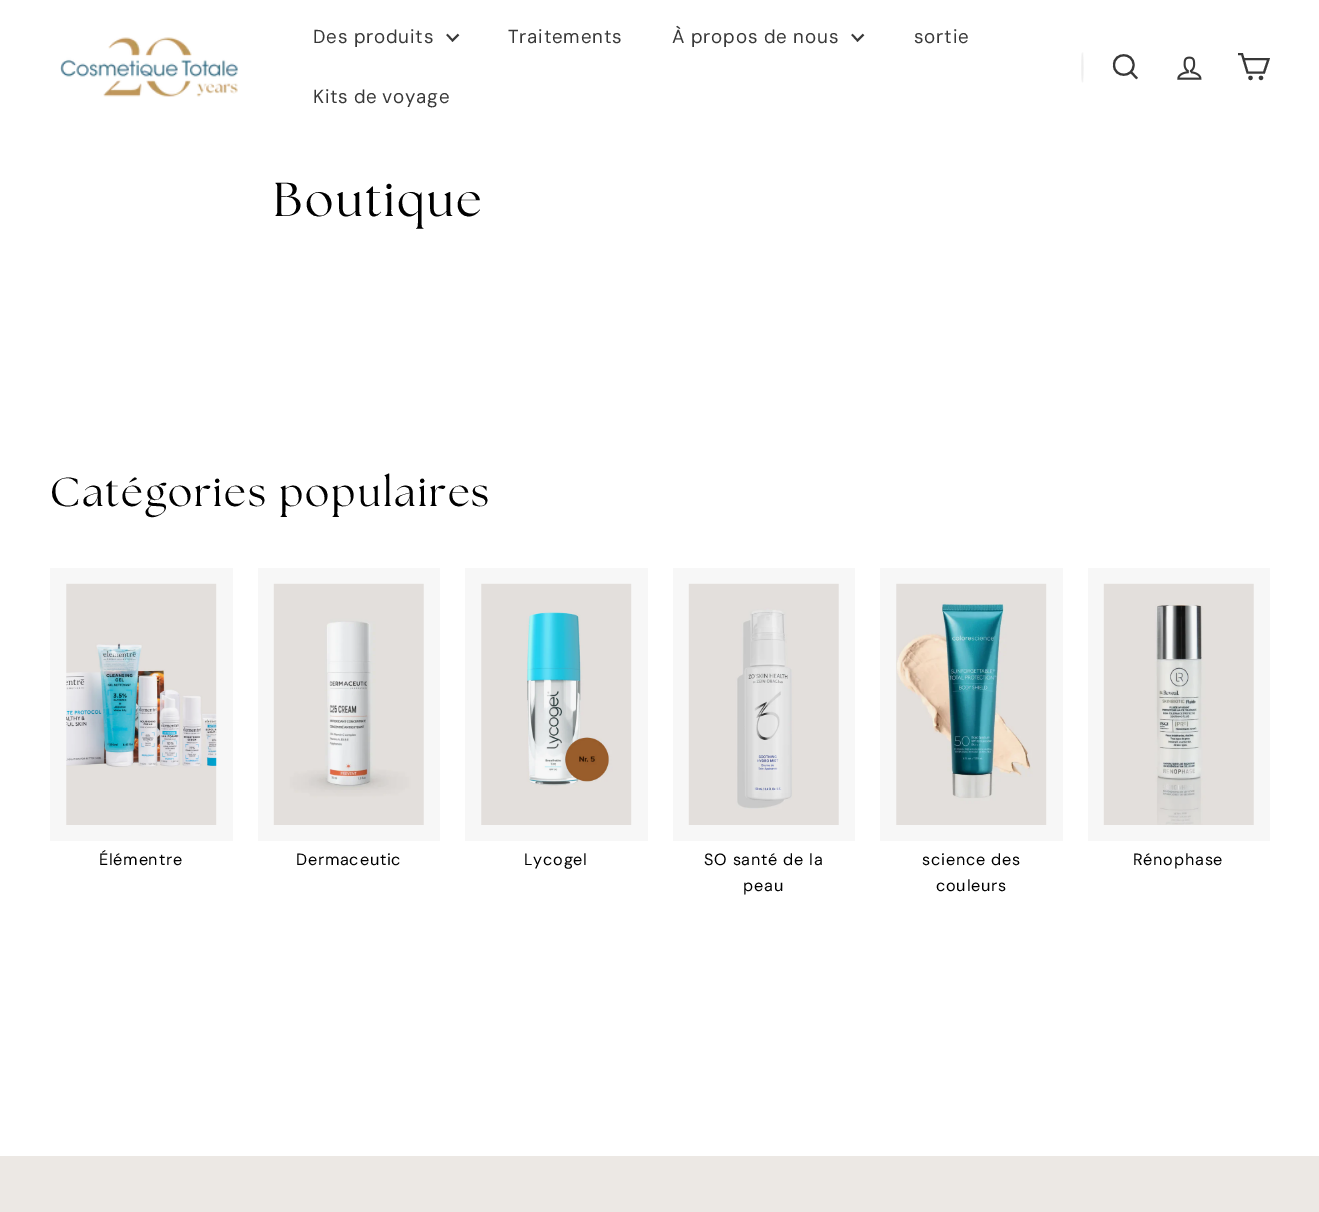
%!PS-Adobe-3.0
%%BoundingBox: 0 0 1319 1212
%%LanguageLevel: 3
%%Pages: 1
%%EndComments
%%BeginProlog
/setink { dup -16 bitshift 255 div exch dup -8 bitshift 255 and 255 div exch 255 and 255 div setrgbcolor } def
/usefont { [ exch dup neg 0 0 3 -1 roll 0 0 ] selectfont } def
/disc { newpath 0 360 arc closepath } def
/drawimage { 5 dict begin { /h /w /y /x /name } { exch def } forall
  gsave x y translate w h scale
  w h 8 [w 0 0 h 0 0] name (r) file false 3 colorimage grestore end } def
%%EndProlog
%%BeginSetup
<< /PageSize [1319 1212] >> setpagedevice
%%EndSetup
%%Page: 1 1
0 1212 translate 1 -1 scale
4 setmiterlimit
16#FFFFFF setink
0 0 1319 1212 rectfill
[
    [1088 568 182 273 16#F7F7F7]
    [880 568 183 273 16#F7F7F7]
    [673 568 182 273 16#F7F7F7]
    [465 568 183 273 16#F7F7F7]
    [258 568 182 273 16#F7F7F7]
    [50 568 183 273 16#F7F7F7]
] { aload pop setink rectfill } forall
(img1.raw) 60 37 179 60 drawimage
/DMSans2-Regular 18.75 usefont
16#383838 setink
313 43 moveto 0.75 0 (Des produits) ashow
1.8 setlinewidth
447 34.5 moveto 452.5 40.5 lineto 458.5 34.5 lineto stroke
508 43 moveto 0.75 0 (Traitements) ashow
672 43 moveto 0.75 0 (À propos de nous) ashow
852 34.5 moveto 857.5 40.5 lineto 863.5 34.5 lineto stroke
914 43 moveto 0.75 0 (sortie) ashow
313 103 moveto -1 0 32 0.75 0 (Kits de voyage) awidthshow
(img2.raw) 1081 52 3 31 drawimage
2.1 setlinewidth
1133.5 65 moveto 1133.5 78 1114 78 1114 65 curveto 1114 52 1133.5 52 1133.5 65 curveto 1137 78.5 moveto 1131 72 lineto stroke
(img3.raw) 1177 56 25 24 drawimage
1243.5 59 moveto 1268.5 59 lineto 1264 72.5 lineto 1247.5 72.5 lineto 1242 54 lineto 1238 54 lineto stroke
1250.5 77.9 1.1 disc stroke
1261 77.9 1.1 disc stroke
/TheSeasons-Regular 47.5 usefont
16#000000 setink
273 216 moveto 2.5 0 (Boutique) ashow
/TheSeasons-Regular 40.4 usefont
50 506 moveto 2 0 (Catégories populaires) ashow
(img4.raw) 66 583 151 242 drawimage
/DMSans-Regular 16.25 usefont
99 865 moveto 0.75 0 (Élémentre) ashow
(img5.raw) 273 583 151 242 drawimage
296 865 moveto 0.75 0 (Dermaceutic) ashow
(img6.raw) 481 583 151 242 drawimage
524 865 moveto 0.75 0 (Lycogel) ashow
(img7.raw) 688 583 151 242 drawimage
704 865 moveto 0.75 0 (SO santé de la) ashow
743 891 moveto 0.75 0 (peau) ashow
(img8.raw) 896 583 151 242 drawimage
922 865 moveto 0.75 0 (science des) ashow
936 891 moveto 0.75 0 (couleurs) ashow
(img9.raw) 1103 583 151 242 drawimage
1133 865 moveto 0.75 0 (Rénophase) ashow
16#ECE8E4 setink
0 1156 1319 56 rectfill
showpage
%%EOF
